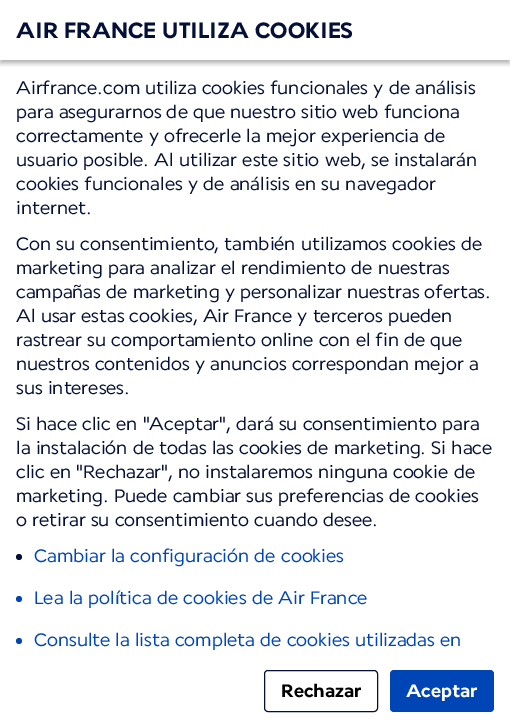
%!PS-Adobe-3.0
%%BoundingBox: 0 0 510 728
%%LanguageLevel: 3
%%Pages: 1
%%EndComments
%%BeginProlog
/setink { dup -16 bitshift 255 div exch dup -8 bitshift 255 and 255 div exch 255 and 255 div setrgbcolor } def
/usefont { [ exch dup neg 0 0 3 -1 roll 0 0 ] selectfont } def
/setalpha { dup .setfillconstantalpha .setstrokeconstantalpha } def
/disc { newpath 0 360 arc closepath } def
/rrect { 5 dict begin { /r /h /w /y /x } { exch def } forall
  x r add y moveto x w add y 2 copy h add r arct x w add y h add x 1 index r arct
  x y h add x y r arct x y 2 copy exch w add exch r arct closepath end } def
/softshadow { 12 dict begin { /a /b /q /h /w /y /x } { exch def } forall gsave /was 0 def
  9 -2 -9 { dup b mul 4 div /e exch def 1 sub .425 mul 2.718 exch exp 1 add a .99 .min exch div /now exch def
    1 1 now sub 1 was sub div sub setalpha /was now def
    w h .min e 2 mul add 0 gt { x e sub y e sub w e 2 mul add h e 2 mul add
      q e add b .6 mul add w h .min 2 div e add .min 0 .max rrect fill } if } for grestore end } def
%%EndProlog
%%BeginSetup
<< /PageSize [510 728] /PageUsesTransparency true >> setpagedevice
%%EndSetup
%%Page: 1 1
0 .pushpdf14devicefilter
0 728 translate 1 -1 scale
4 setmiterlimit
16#FFFFFF setink
0 0 510 728 rectfill
gsave
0 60 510 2 rectclip
16#000000 setink
0 0 510 60 0 2 0.12 softshadow
grestore
gsave
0 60 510 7 rectclip
16#000000 setink
0 4 510 60 0 2 0.24 softshadow
grestore
/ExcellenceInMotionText-Bold 22 usefont
16#051039 setink
16 38 moveto (AIR FRANCE UTILIZA COOKIES) show
/ExcellenceInMotionText-Regular 18 usefont
[
    [(Airfrance.com utiliza cookies funcionales y de análisis) 16 94]
    [(para asegurarnos de que nuestro sitio web funciona) 16 118]
    [(correctamente y ofrecerle la mejor experiencia de) 16 142]
    [(usuario posible. Al utilizar este sitio web, se instalarán) 16 166]
    [(cookies funcionales y de análisis en su navegador) 16 190]
    [(internet.) 16 214]
    [(Con su consentimiento, también utilizamos cookies de) 16 250]
    [(marketing para analizar el rendimiento de nuestras) 16 274]
    [(campañas de marketing y personalizar nuestras ofertas.) 16 298]
    [(Al usar estas cookies, Air France y terceros pueden) 16 322]
    [(rastrear su comportamiento online con el fin de que) 16 346]
    [(nuestros contenidos y anuncios correspondan mejor a) 16 370]
    [(sus intereses.) 16 394]
    [(Si hace clic en "Aceptar", dará su consentimiento para) 16 430]
    [(la instalación de todas las cookies de marketing. Si hace) 16 454]
    [(clic en "Rechazar", no instalaremos ninguna cookie de) 16 478]
    [(marketing. Puede cambiar sus preferencias de cookies) 16 502]
    [(o retirar su consentimiento cuando desee.) 16 526]
] { aload pop moveto show } forall
19 557 3 disc fill
16#0045B6 setink
34 562 moveto (Cambiar la configuración de cookies) show
19 599 3 disc fill
34 604 moveto (Lea la política de cookies de Air France) show
19 641 3 disc fill
34 646 moveto (Consulte la lista completa de cookies utilizadas en) show
16#051039 setink
264.5 670.5 113 41 3.5 rrect stroke
/ExcellenceInMotionText-Bold 18 usefont
16#000000 setink
281 697 moveto (Rechazar) show
16#0045B6 setink
390 670 104 42 4 rrect fill
16#FFFFFF setink
406 697 moveto (Aceptar) show
.poppdf14devicefilter showpage
%%EOF
